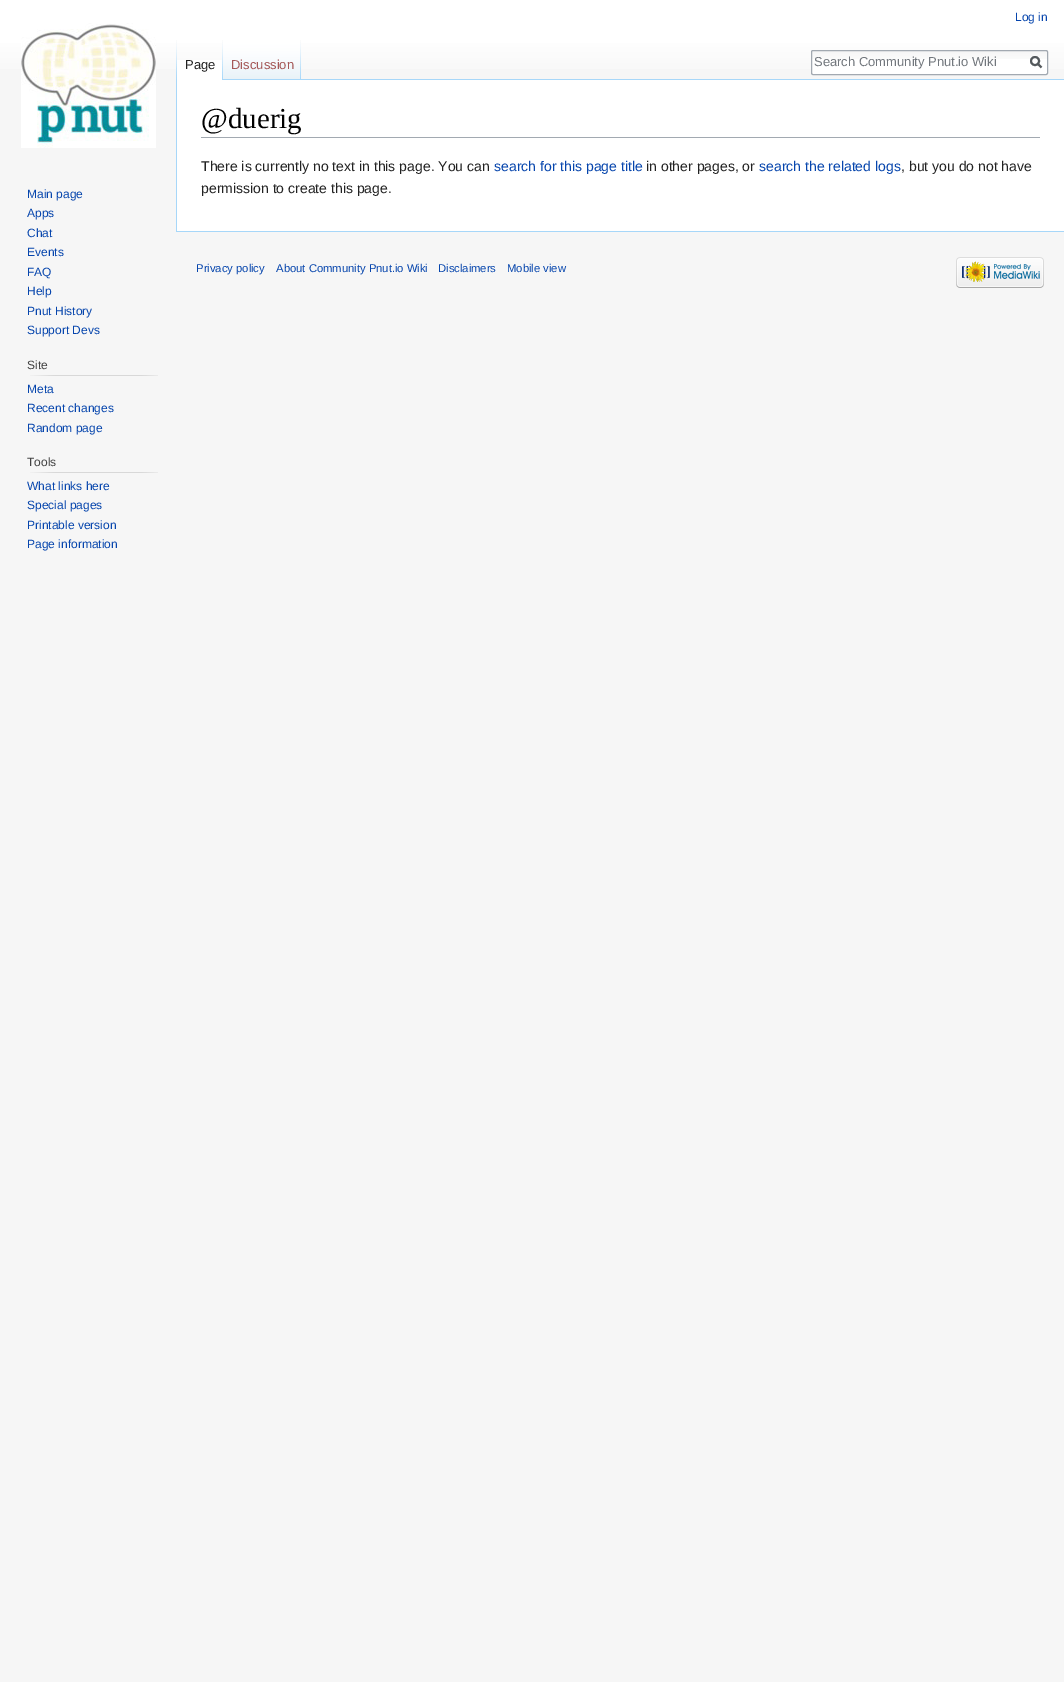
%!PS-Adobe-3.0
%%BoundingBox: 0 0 1064 1682
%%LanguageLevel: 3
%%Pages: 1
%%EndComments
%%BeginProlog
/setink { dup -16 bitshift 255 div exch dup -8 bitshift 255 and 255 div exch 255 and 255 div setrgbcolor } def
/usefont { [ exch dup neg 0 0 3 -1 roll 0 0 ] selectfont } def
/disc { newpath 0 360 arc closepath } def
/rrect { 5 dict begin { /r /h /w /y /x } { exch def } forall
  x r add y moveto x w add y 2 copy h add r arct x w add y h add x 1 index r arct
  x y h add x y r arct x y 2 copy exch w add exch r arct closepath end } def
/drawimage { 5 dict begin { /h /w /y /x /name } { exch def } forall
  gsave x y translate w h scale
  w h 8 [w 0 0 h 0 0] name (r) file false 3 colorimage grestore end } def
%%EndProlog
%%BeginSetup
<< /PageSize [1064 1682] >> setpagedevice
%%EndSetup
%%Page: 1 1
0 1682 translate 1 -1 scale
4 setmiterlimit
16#F6F6F6 setink
0 0 1064 1682 rectfill
gsave 0 0 moveto 1064 0 lineto 1064 69 lineto 0 69 lineto closepath clip newpath
<< /ShadingType 2 /ColorSpace /DeviceRGB /Coords [532 0 532 80] /Extend [true true] /Function << /FunctionType 3 /Domain [0 1] /Functions [<< /FunctionType 2 /Domain [0 1] /C0 [1 1 1] /C1 [1 1 1] /N 1 >> << /FunctionType 2 /Domain [0 1] /C0 [1 1 1] /C1 [0.965 0.965 0.965] /N 1 >>] /Bounds [0.5] /Encode [0 1 0 1] >> >> shfill grestore
/LiberationSans-Regular 12 usefont
16#0645AD setink
1015 21 moveto (Log in) show
(img1.raw) 176 40 1 39 drawimage
16#FFFFFF setink
177 60 45 20 rectfill
(img2.raw) 222 40 1 40 drawimage
/LiberationSans-Regular 13 usefont
16#222222 setink
185 69 moveto (Page) show
(img3.raw) 223 40 77 39 drawimage
(img1.raw) 300 40 1 39 drawimage
16#A55858 setink
231 69 moveto (Discussion) show
16#FFFFFF setink
811 50 237 25 2 rrect fill
(img4.raw) 811 51 237 8 drawimage
16#A2A9B1 setink
811.5 50.5 236 24 1.5 rrect stroke
16#72777D setink
814 66 moveto (Search Community Pnut.io Wiki) show
16#54595D setink
2 setlinewidth
1041.5 67.5 moveto 1037.5 63.5 lineto stroke
1035 61 4 disc stroke
(img5.raw) 21 23 135 125 drawimage
/LiberationSans-Regular 12 usefont
16#0645AD setink
[
    [(Main page) 27 198]
    [(Apps) 27 217]
    [(Chat) 27 237]
    [(Events) 27 256]
    [(FAQ) 27 276]
    [(Help) 27 295]
    [(Pnut History) 27 315]
    [(Support Devs) 27 334]
] { aload pop moveto show } forall
16#444444 setink
27 369 moveto (Site) show
(img6.raw) 30 375 128 1 drawimage
16#0645AD setink
[
    [(Meta) 27 393]
    [(Recent changes) 27 412]
    [(Random page) 27 432]
] { aload pop moveto show } forall
16#444444 setink
27 466 moveto (Tools) show
(img6.raw) 30 472 128 1 drawimage
16#0645AD setink
[
    [(What links here) 27 490]
    [(Special pages) 27 509]
    [(Printable version) 27 529]
    [(Page information) 27 548]
] { aload pop moveto show } forall
[
    [177 80 887 151 16#FFFFFF]
    [223 79 841 1 16#A7D7F9]
    [176 231 888 1 16#A7D7F9]
    [176 79 1 153 16#A7D7F9]
    [201 137 839 1 16#A2A9B1]
] { aload pop setink rectfill } forall
/LiberationSerif-Regular 29 usefont
16#000000 setink
201 128 moveto (@duerig) show
/LiberationSans-Regular 14 usefont
16#222222 setink
201 171 moveto (There is currently no text in this page. You can) show
16#0645AD setink
494 171 moveto (search for this page title) show
16#222222 setink
646 171 moveto (in other pages, or) show
16#0645AD setink
759 171 moveto (search the related logs) show
16#222222 setink
901 171 moveto (, but you do not have) show
201 193 moveto (permission to create this page.) show
/LiberationSans-Regular 11.25 usefont
16#0645AD setink
[
    [(Privacy policy) 196 272]
    [(About Community Pnut.io Wiki) 276 272]
    [(Disclaimers) 438 272]
    [(Mobile view) 507 272]
] { aload pop moveto show } forall
(img7.raw) 956 257 88 31 drawimage
showpage
%%EOF
